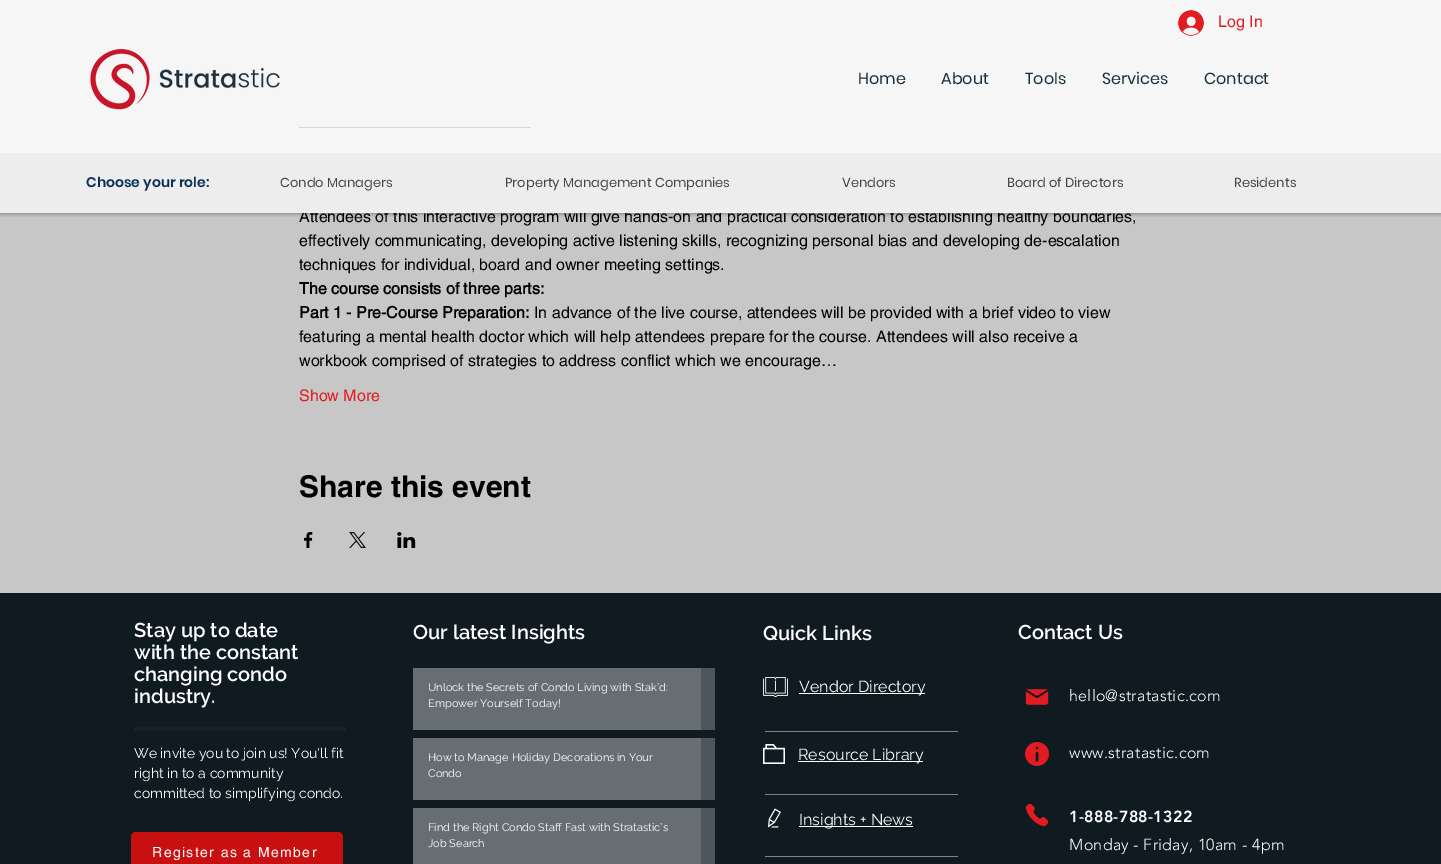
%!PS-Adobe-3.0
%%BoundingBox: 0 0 1441 864
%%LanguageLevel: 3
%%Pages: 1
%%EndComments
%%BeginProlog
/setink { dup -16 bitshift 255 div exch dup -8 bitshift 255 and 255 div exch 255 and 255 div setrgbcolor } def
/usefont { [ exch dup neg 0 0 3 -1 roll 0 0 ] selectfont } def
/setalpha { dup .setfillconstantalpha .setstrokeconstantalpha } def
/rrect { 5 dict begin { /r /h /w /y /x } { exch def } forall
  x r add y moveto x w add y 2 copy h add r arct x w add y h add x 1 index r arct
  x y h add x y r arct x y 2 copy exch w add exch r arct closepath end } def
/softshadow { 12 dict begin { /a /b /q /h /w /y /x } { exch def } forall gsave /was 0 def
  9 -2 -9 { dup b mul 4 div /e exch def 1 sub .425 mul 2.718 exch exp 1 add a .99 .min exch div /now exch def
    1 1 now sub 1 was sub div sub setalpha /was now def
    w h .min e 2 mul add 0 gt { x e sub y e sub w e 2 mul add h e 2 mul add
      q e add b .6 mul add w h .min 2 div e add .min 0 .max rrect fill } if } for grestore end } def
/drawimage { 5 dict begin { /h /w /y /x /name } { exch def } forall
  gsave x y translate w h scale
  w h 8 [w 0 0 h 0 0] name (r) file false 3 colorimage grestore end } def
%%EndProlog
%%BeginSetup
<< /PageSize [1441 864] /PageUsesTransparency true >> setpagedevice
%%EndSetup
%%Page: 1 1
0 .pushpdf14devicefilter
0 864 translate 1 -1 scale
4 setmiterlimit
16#C7C7C7 setink
0 0 1441 864 rectfill
16#000000 setink
299 127 232 1 rectfill
gsave
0 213 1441 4 rectclip
0 0 1441 213 0 2.5 0.5 softshadow
grestore
0.84 setalpha
16#FFFFFF setink
0 0 1441 153 rectfill
1 setalpha
(img1.raw) 1178 10 26 26 drawimage
/helvetica-Regular 16 usefont
16#E21C21 setink
1218 27 moveto (Log In) show
(img2.raw) 90 48 190 62 drawimage
/Poppins-Regular 16 usefont
16#18303E setink
[
    [(Home) 858 84]
    [(About) 941 84]
    [(Tools) 1025 84]
    [(Services) 1102 84]
    [(Contact) 1204 84]
] { aload pop moveto show } forall
/helvetica-Regular 16 usefont
16#000000 setink
299 222 moveto (Attendees of this interactive program will give hands-on and practical consideration to establishing healthy boundaries,) show
16#EDEDED setink
0 153 1441 60 rectfill
/Poppins-SemiBold 14 usefont
16#0B2F5B setink
86 187 moveto (Choose your role:) show
/Poppins-Regular 13 usefont
16#444444 setink
[
    [(Condo Managers) 280 187]
    [(Property Management Companies) 505 187]
    [(Vendors) 842 187]
    [(Board of Directors) 1007 187]
    [(Residents) 1234 187]
] { aload pop moveto show } forall
/helvetica-Regular 16 usefont
16#000000 setink
299 246 moveto (effectively communicating, developing active listening skills, recognizing personal bias and developing de-escalation) show
299 270 moveto (techniques for individual, board and owner meeting settings.) show
/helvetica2-Bold 16 usefont
299 294 moveto (The course consists of three parts:) show
299 318 moveto (Part 1 - Pre-Course Preparation:) show
/helvetica-Regular 16 usefont
[
    [(In advance of the live course, attendees will be provided with a brief video to view) 534 318]
    [(featuring a mental health doctor which will help attendees prepare for the course. Attendees will also receive a) 299 342]
    [(workbook comprised of strategies to address conflict which we encourage…) 299 366]
] { aload pop moveto show } forall
16#E21C21 setink
299 401 moveto (Show More) show
/helvetica-Bold 30 usefont
16#000000 setink
299 497 moveto (Share this event) show
(img3.raw) 304 532 9 16 drawimage
(img4.raw) 349 532 17 16 drawimage
(img5.raw) 397 532 19 16 drawimage
16#0F1B21 setink
0 593 1441 271 rectfill
/Raleway-SemiBold 20 usefont
16#FFFFFF setink
[
    [(Stay up to date) 134 637]
    [(with the constant) 134 659]
    [(changing condo) 134 681]
    [(industry.) 134 703]
] { aload pop moveto show } forall
16#1A2023 setink
134 727 212 4 rectfill
/Raleway-Regular 14 usefont
16#FFFFFF setink
[
    [(We invite you to join us! You'll fit) 134 758]
    [(right in to a community) 134 778]
    [(committed to simplifying condo.) 134 798]
] { aload pop moveto show } forall
16#C81010 setink
131 832 212 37 5 rrect fill
/helvetica-Regular 14 usefont
16#FFFFFF setink
152 857 moveto 1.4 0 (Register as a Member) ashow
/Raleway-SemiBold 20 usefont
413 639 moveto (Our latest Insights) show
763 640 moveto (Quick Links) show
(img6.raw) 763 677 25 20 drawimage
799 693 126 1 rectfill
/Raleway-Regular 16 usefont
799 692 moveto (Vendor Directory) show
16#7F8486 setink
765 731 193 1 rectfill
(img7.raw) 763 744 22 20 drawimage
16#FFFFFF setink
798 761 125 1 rectfill
798 760 moveto (Resource Library) show
16#7F8486 setink
765 794 193 1 rectfill
(img8.raw) 768 808 13 20 drawimage
16#FFFFFF setink
799 826 114 1 rectfill
799 825 moveto (Insights + News) show
16#7F8486 setink
765 856 193 1 rectfill
/Raleway-SemiBold 20 usefont
16#FFFFFF setink
1018 639 moveto (Contact Us) show
16#676E72 setink
413 668 288 62 rectfill
/Raleway-Regular 11 usefont
16#FFFFFF setink
428 691 moveto (Unlock the Secrets of Condo Living with Stak’d:) show
428 707 moveto (Empower Yourself Today!) show
16#4E565B setink
701 668 14 62 rectfill
16#676E72 setink
413 738 288 62 rectfill
16#FFFFFF setink
428 761 moveto (How to Manage Holiday Decorations in Your) show
428 777 moveto (Condo) show
16#4E565B setink
701 738 14 62 rectfill
16#676E72 setink
413 808 288 56 rectfill
16#FFFFFF setink
428 831 moveto (Find the Right Condo Staff Fast with Stratastic’s) show
428 847 moveto (Job Search) show
16#4E565B setink
701 808 14 56 rectfill
(img9.raw) 1025 689 24 16 drawimage
/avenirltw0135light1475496-Light 16 usefont
16#FFFFFF setink
1069 701 moveto 0.3 0 (hello@stratastic.com) ashow
(img10.raw) 1025 742 24 24 drawimage
1069 758 moveto 0.3 0 (www.stratastic.com) ashow
(img11.raw) 1025 803 24 24 drawimage
/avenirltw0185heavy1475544-Black 16 usefont
1069 822 moveto 0.3 0 (1-888-788-1322) ashow
/avenirltw0135light1475496-Light 16 usefont
1069 850 moveto 0.3 0 (Monday - Friday, 10am - 4pm) ashow
.poppdf14devicefilter showpage
%%EOF
